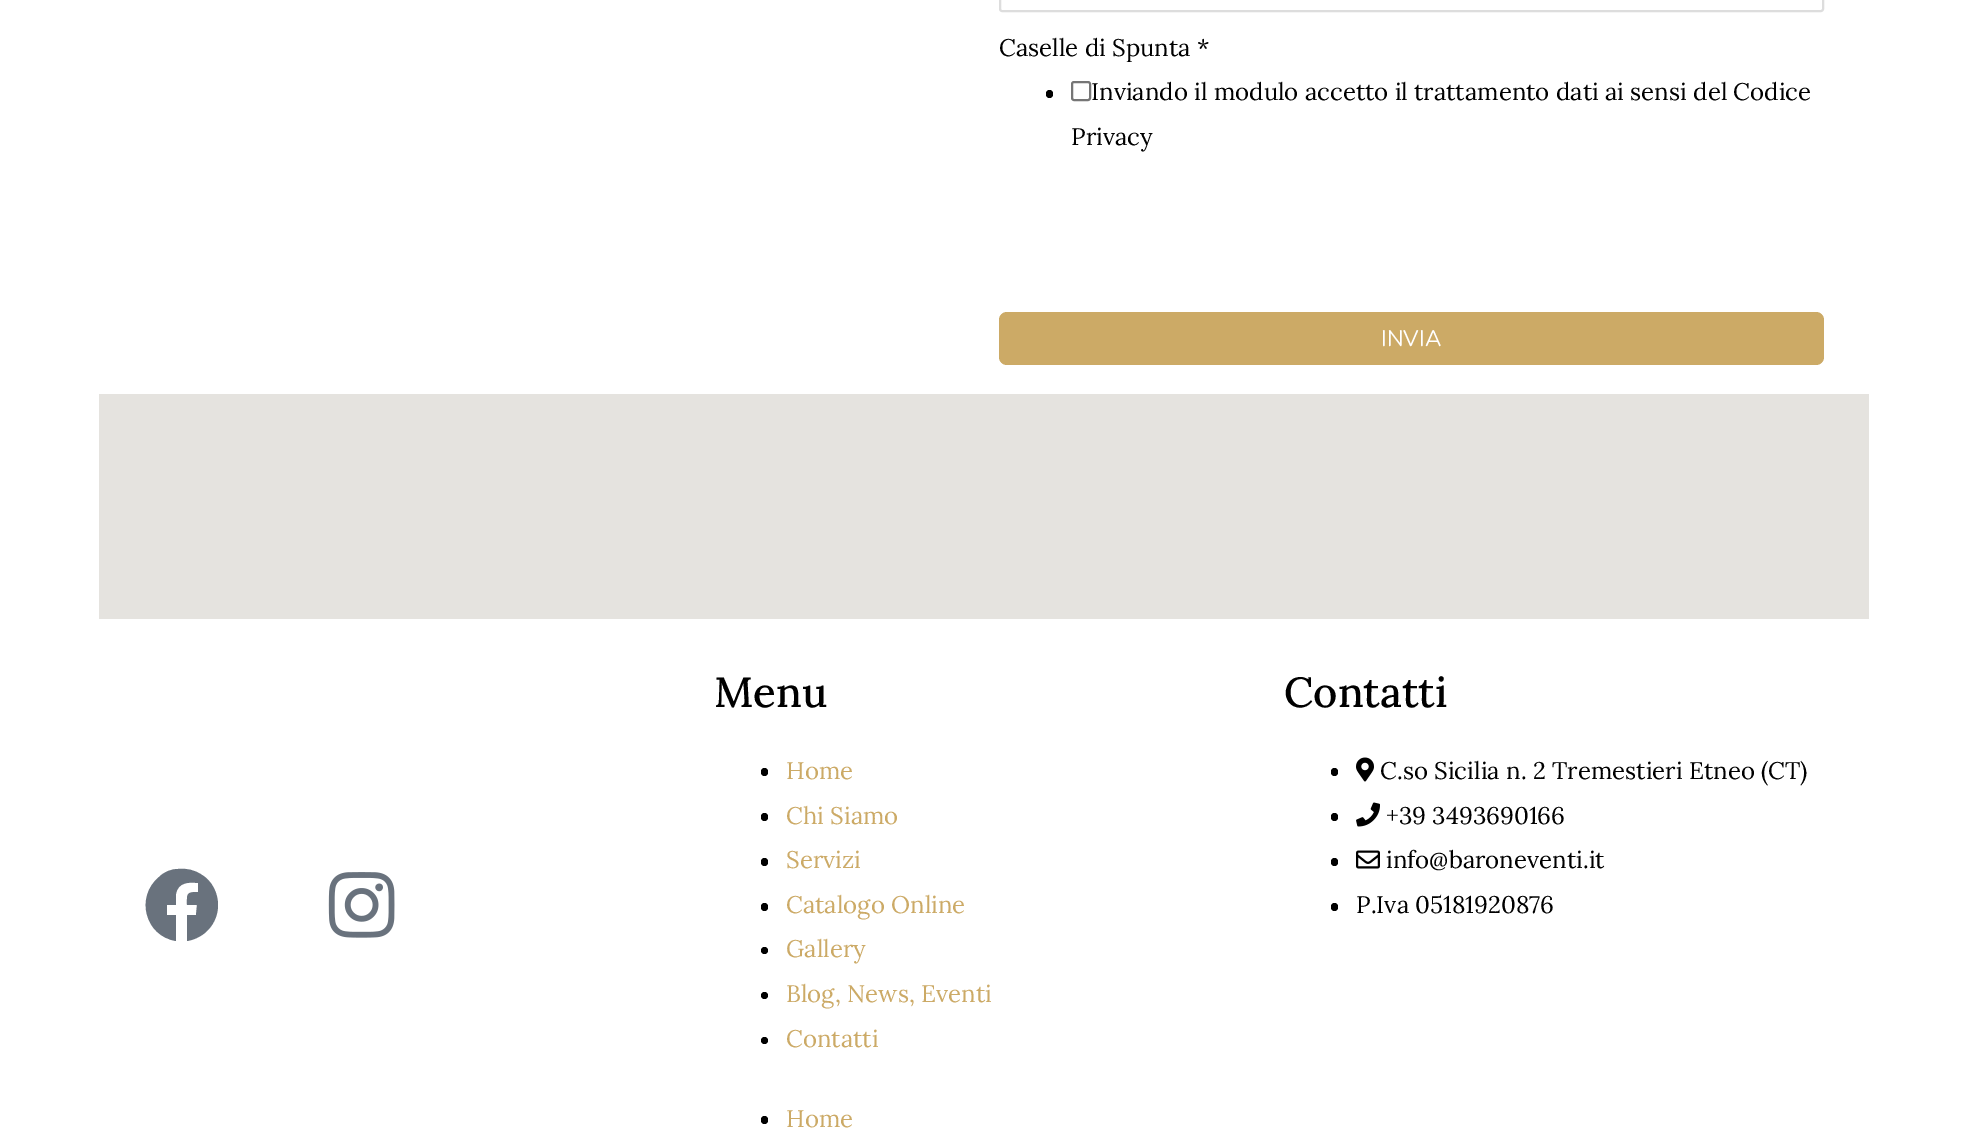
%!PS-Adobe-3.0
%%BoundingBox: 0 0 1967 1129
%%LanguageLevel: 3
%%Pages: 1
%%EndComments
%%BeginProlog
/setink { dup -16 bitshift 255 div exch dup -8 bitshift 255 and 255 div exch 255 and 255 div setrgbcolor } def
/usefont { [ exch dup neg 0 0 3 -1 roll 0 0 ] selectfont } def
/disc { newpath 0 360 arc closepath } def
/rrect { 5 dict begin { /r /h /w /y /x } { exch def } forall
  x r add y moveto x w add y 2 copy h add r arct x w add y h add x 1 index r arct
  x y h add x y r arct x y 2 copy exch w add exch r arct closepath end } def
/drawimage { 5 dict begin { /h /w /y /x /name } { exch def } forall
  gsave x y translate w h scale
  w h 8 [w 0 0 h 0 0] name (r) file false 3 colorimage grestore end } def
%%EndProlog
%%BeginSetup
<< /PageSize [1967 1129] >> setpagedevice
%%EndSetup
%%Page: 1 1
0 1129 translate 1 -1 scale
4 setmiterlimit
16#FFFFFF setink
0 0 1967 1129 rectfill
16#DDDDDD setink
2 setlinewidth
1000 -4 823 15 2 rrect stroke
/Lora-Regular 24 usefont
16#000000 setink
999 56 moveto (Caselle di Spunta *) show
1046 90 7 8 3.5 rrect fill
16#767676 setink
1072 82 18 18 2 rrect stroke
16#000000 setink
1091 100 moveto (Inviando il modulo accetto il trattamento dati ai sensi del Codice) show
1071 145 moveto (Privacy) show
16#CCAA66 setink
999 312 825 53 8 rrect fill
/Nunito-ExtraLight 22.5 usefont
16#FFFFFF setink
1381 346 moveto (INVIA) show
16#E5E3DF setink
99 394 1770 225 rectfill
16#69727D setink
218 905 moveto 218 923 205 938 187 941 curveto 187 915 lineto 196 915 lineto 197 905 lineto 187 905 lineto 187 894 186 892 198 892 curveto 198 883 lineto 189 882 178 882 176 894 curveto 176 905 lineto 167 905 lineto 167 915 lineto 176 915 lineto 176 941 lineto 145 936 135 897 159 877 curveto 164 872 171 869 178 869 curveto 186 868 195 870 202 875 curveto 212 881 218 893 218 905 curveto closepath fill
(img1.raw) 328 872 67 66 drawimage
/Lora-Medium 42 usefont
16#000000 setink
714 707 moveto (Menu) show
761 768 7 8 3.5 rrect fill
/Lora-Regular 24 usefont
16#CCAA66 setink
786 779 moveto (Home) show
16#000000 setink
761 813 7 8 3.5 rrect fill
16#CCAA66 setink
786 824 moveto (Chi Siamo) show
16#000000 setink
761 858 7 8 3.5 rrect fill
16#CCAA66 setink
786 868 moveto (Servizi) show
16#000000 setink
761 903 7 8 3.5 rrect fill
16#CCAA66 setink
786 913 moveto (Catalogo Online) show
16#000000 setink
764.5 950.5 3.5 disc fill
16#CCAA66 setink
786 957 moveto (Gallery) show
16#000000 setink
764.5 995.5 3.5 disc fill
16#CCAA66 setink
786 1002 moveto (Blog, News, Eventi) show
16#000000 setink
764.5 1040.5 3.5 disc fill
16#CCAA66 setink
786 1047 moveto (Contatti) show
16#000000 setink
761 1116 7 8 3.5 rrect fill
16#CCAA66 setink
786 1127 moveto (Home) show
/Lora-Medium 42 usefont
16#000000 setink
1284 707 moveto (Contatti) show
1331 768 7 8 3.5 rrect fill
(img2.raw) 1356 757 18 25 drawimage
/Lora-Regular 24 usefont
1380 779 moveto (C.so Sicilia n. 2 Tremestieri Etneo \(CT\)) show
1331 813 7 8 3.5 rrect fill
(img3.raw) 1356 802 24 25 drawimage
1386 824 moveto (+39 3493690166) show
1331 858 7 8 3.5 rrect fill
(img4.raw) 1356 850 24 19 drawimage
1386 868 moveto (info@baroneventi.it) show
1331 903 7 8 3.5 rrect fill
1356 913 moveto (P.Iva 05181920876) show
showpage
%%EOF
